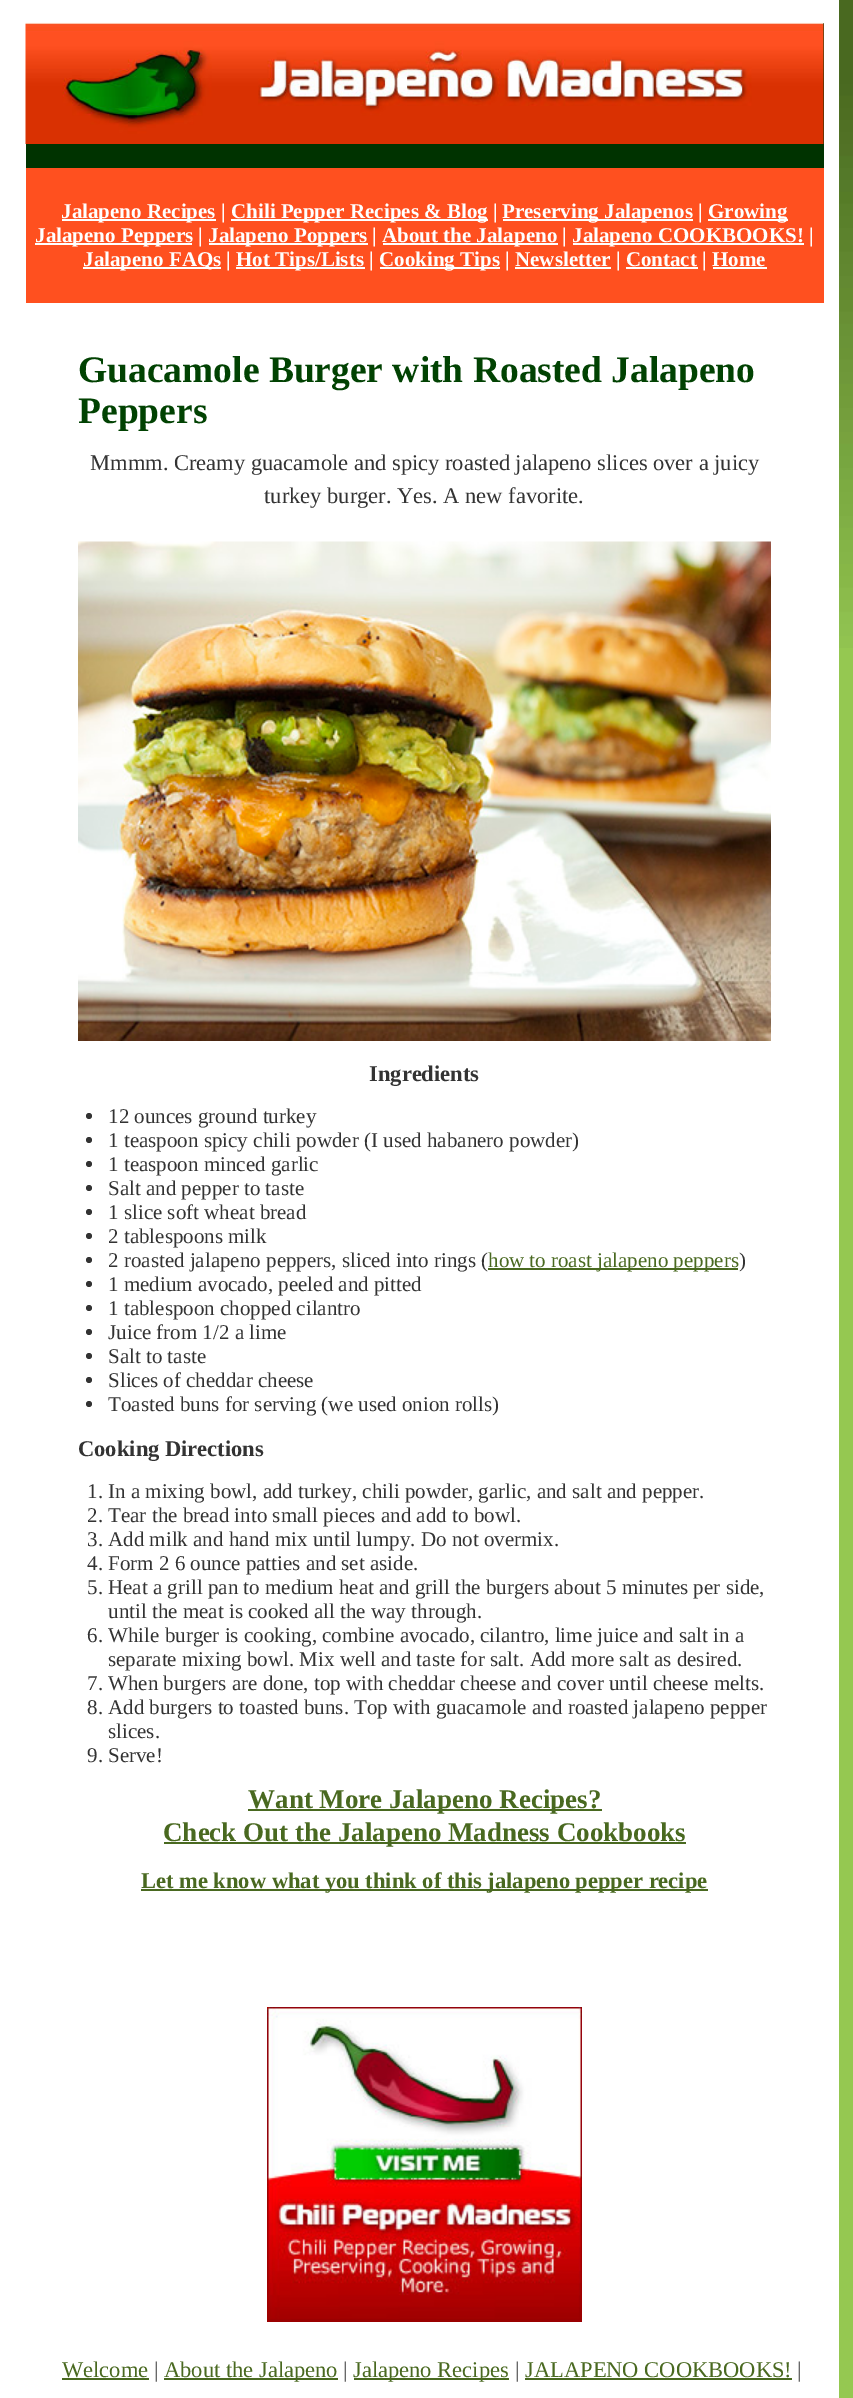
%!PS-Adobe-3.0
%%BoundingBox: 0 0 853 2398
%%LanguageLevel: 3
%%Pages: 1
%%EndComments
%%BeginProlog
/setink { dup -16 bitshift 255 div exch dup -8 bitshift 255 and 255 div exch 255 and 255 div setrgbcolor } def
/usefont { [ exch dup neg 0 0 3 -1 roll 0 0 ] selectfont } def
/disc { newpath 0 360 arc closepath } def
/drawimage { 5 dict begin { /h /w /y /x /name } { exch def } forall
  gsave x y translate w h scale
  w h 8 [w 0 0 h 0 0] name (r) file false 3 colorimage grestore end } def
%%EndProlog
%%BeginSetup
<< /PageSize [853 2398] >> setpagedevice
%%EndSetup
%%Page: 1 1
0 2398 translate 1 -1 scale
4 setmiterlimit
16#95C851 setink
0 0 853 2398 rectfill
(img1.raw) 839 0 14 648 drawimage
16#FFFFFF setink
0 0 839 2398 rectfill
16#003300 setink
26 23 798 145 rectfill
(img2.raw) 25 22 799 122 drawimage
16#FF501F setink
26 168 798 135 rectfill
16#FFFFFF setink
62 219 154 2 rectfill
/LiberationSerif-Bold 21 usefont
61 218 moveto (Jalapeno Recipes |) show
231 219 257 2 rectfill
231 218 moveto (Chili Pepper Recipes & Blog |) show
503 219 190 2 rectfill
502 218 moveto (Preserving Jalapenos |) show
708 219 80 2 rectfill
708 218 moveto (Growing) show
35 243 157 2 rectfill
35 242 moveto (Jalapeno Peppers |) show
209 243 159 2 rectfill
208 242 moveto (Jalapeno Poppers |) show
383 243 175 2 rectfill
382 242 moveto (About the Jalapeno |) show
573 243 231 2 rectfill
572 242 moveto (Jalapeno COOKBOOKS! |) show
83 267 138 2 rectfill
83 266 moveto (Jalapeno FAQs |) show
236 267 129 2 rectfill
236 266 moveto (Hot Tips/Lists |) show
380 267 120 2 rectfill
379 266 moveto (Cooking Tips | Newsletter | Contact | Home) show
[
    [515 267 96 2 16#FFFFFF]
    [626 267 72 2 16#FFFFFF]
    [713 267 54 2 16#FFFFFF]
] { aload pop setink rectfill } forall
/LiberationSerif-Bold 37.5 usefont
16#014202 setink
78 382 moveto (Guacamole Burger with Roasted Jalapeno) show
78 423 moveto (Peppers) show
/LiberationSerif-Regular 22.5 usefont
16#333333 setink
90 470 moveto (Mmmm. Creamy guacamole and spicy roasted jalapeno slices over a juicy) show
264 503 moveto (turkey burger. Yes. A new favorite.) show
(img3.raw) 78 541 693 500 drawimage
/LiberationSerif-Bold 22.5 usefont
369 1081 moveto (Ingredients) show
89 1116 3 disc fill
/LiberationSerif-Regular 21 usefont
108 1123 moveto (12 ounces ground turkey) show
89 1140 3 disc fill
108 1147 moveto (1 teaspoon spicy chili powder \(I used habanero powder\)) show
89 1164 3 disc fill
108 1171 moveto (1 teaspoon minced garlic) show
89 1188 3 disc fill
108 1195 moveto (Salt and pepper to taste) show
89 1212 3 disc fill
108 1219 moveto (1 slice soft wheat bread) show
89 1236 3 disc fill
108 1243 moveto (2 tablespoons milk) show
89 1260 3 disc fill
108 1267 moveto (2 roasted jalapeno peppers, sliced into rings \() show
16#496920 setink
488 1268 250 2 rectfill
488 1267 moveto (how to roast jalapeno peppers) show
16#333333 setink
739 1267 moveto (\)) show
89 1284 3 disc fill
108 1291 moveto (1 medium avocado, peeled and pitted) show
89 1308 3 disc fill
108 1315 moveto (1 tablespoon chopped cilantro) show
89 1332 3 disc fill
108 1339 moveto (Juice from 1/2 a lime) show
89 1356 3 disc fill
108 1363 moveto (Salt to taste) show
89 1380 3 disc fill
108 1387 moveto (Slices of cheddar cheese) show
89 1404 3 disc fill
108 1411 moveto (Toasted buns for serving \(we used onion rolls\)) show
/LiberationSerif-Bold 22.5 usefont
78 1456 moveto (Cooking Directions) show
/LiberationSerif-Regular 21 usefont
[
    [(1. In a mixing bowl, add turkey, chili powder, garlic, and salt and pepper.) 87 1498]
    [(2. Tear the bread into small pieces and add to bowl.) 87 1522]
    [(3. Add milk and hand mix until lumpy. Do not overmix.) 87 1546]
    [(4. Form 2 6 ounce patties and set aside.) 87 1570]
    [(5. Heat a grill pan to medium heat and grill the burgers about 5 minutes per side,) 87 1594]
    [(until the meat is cooked all the way through.) 108 1618]
    [(6. While burger is cooking, combine avocado, cilantro, lime juice and salt in a) 87 1642]
    [(separate mixing bowl. Mix well and taste for salt. Add more salt as desired.) 108 1666]
    [(7. When burgers are done, top with cheddar cheese and cover until cheese melts.) 87 1690]
    [(8. Add burgers to toasted buns. Top with guacamole and roasted jalapeno pepper) 87 1714]
    [(slices.) 108 1738]
    [(9. Serve!) 87 1762]
] { aload pop moveto show } forall
16#496920 setink
248 1809 354 2 rectfill
/LiberationSerif-Bold 27 usefont
248 1808 moveto (Want More Jalapeno Recipes?) show
164 1842 522 2 rectfill
163 1841 moveto (Check Out the Jalapeno Madness Cookbooks) show
141 1889 567 2 rectfill
/LiberationSerif-Bold 22.5 usefont
141 1888 moveto (Let me know what you think of this jalapeno pepper recipe) show
(img4.raw) 267 2007 315 315 drawimage
/LiberationSerif-Regular 22.5 usefont
62 2377 moveto (Welcome) show
62 2378 87 2 rectfill
16#333333 setink
154 2377 moveto (|) show
16#496920 setink
164 2378 174 2 rectfill
164 2377 moveto (About the Jalapeno) show
16#333333 setink
343 2377 moveto (|) show
16#496920 setink
354 2378 155 2 rectfill
353 2377 moveto (Jalapeno Recipes) show
16#333333 setink
515 2377 moveto (|) show
16#496920 setink
525 2377 moveto (JALAPENO COOKBOOKS!) show
525 2378 267 2 rectfill
16#333333 setink
797 2377 moveto (|) show
showpage
%%EOF
